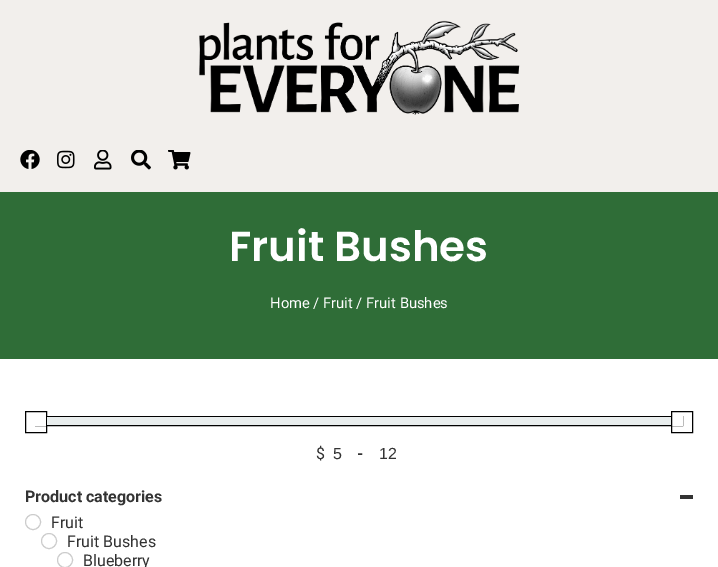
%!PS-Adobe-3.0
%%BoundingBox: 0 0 718 567
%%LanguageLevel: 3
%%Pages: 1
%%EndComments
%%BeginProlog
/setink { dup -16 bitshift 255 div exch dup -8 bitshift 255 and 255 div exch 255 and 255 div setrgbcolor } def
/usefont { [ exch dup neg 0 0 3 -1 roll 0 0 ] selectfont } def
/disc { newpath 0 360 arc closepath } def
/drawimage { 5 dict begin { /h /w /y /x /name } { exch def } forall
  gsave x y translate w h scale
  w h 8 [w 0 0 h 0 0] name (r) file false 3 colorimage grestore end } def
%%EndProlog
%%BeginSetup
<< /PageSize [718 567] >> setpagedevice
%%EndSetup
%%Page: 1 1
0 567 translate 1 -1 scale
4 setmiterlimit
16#FFFFFF setink
0 0 718 567 rectfill
16#F2EFEC setink
0 0 718 192 rectfill
(img1.raw) 199 20 321 95 drawimage
(img2.raw) 20 150 20 19 drawimage
(img3.raw) 57 150 18 19 drawimage
(img4.raw) 94 150 18 20 drawimage
(img5.raw) 131 150 20 20 drawimage
(img6.raw) 168 150 23 20 drawimage
16#2F6D37 setink
0 192 718 167 rectfill
/Poppins-SemiBold 42 usefont
16#FFFFFF setink
229 261 moveto (Fruit Bushes) show
/Roboto-Regular 14.75 usefont
270 308 moveto (Home / Fruit / Fruit Bushes) show
16#000000 setink
35.5 416.5 647 9 rectstroke
16#FFFFFF setink
35 416 11 10 rectfill
16#000000 setink
25.5 411.5 21 21 rectstroke
16#E8EDED setink
47 417 624 8 rectfill
16#FFFFFF setink
672 416 11 10 rectfill
16#000000 setink
671.5 411.5 21 21 rectstroke
/Roboto-Regular 16 usefont
16#333333 setink
316 459 moveto ($) show
/LiberationSans-Regular 16 usefont
333 459 moveto (5) show
/Roboto-Bold 16 usefont
357 459 moveto (-) show
/LiberationSans-Regular 16 usefont
379 459 moveto (12) show
/Roboto-Bold 16 usefont
25 502 moveto (Product categories) show
680 495 13 4 rectfill
16#CCCCCC setink
33 522 7.5 disc stroke
/Roboto-Regular 16 usefont
16#333333 setink
51 528 moveto (Fruit) show
16#CCCCCC setink
49 541 7.5 disc stroke
16#333333 setink
67 547 moveto (Fruit Bushes) show
16#CCCCCC setink
65 560 7.5 disc stroke
16#333333 setink
83 566 moveto (Blueberry) show
showpage
%%EOF
